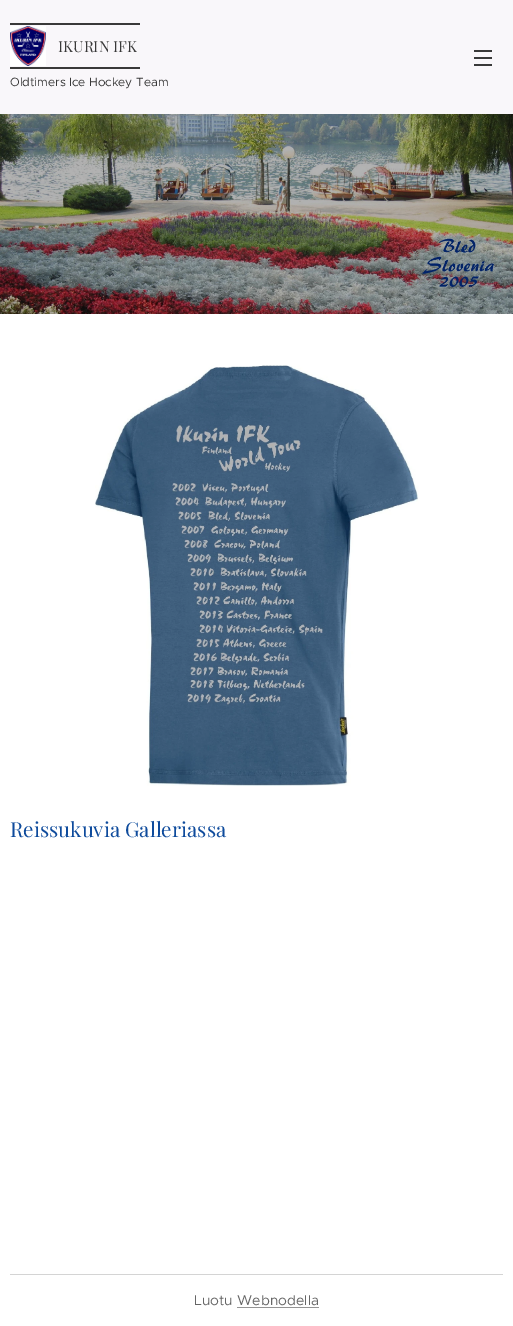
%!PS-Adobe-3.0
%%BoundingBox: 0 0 513 1326
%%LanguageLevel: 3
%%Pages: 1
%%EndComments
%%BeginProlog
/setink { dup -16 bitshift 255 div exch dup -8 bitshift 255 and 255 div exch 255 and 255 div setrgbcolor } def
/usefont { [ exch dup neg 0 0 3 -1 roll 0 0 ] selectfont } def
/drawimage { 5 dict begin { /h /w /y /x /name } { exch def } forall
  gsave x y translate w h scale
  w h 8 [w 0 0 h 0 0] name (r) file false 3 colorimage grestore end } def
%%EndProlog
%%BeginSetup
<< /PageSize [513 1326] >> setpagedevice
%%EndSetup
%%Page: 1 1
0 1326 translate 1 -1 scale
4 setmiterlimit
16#FFFFFF setink
0 0 513 1326 rectfill
[
    [0 0 513 114 16#F9F7FA]
    [10 23 130 2 16#393939]
    [10 67 130 2 16#393939]
] { aload pop setink rectfill } forall
(img1.raw) 10 26 36 40 drawimage
/PlayfairDisplay-Regular 15.25 usefont
58 52 moveto (IKURIN IFK) show
/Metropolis-Regular 12 usefont
10 86 moveto (Oldtimers Ice Hockey Team) show
[
    [474 57 18 2 16#393939]
    [474 50 18 2 16#393939]
    [474 64 18 2 16#393939]
] { aload pop setink rectfill } forall
(img2.raw) 0 114 513 200 drawimage
(img3.raw) 95 365 324 421 drawimage
/PlayfairDisplay-Regular 20.6 usefont
16#0E4B9C setink
10 837 moveto (Reissukuvia Galleriassa) show
16#D4D4D4 setink
10 1274 493 1 rectfill
/Metropolis-Regular 14 usefont
16#666666 setink
194 1305 moveto 0.1 0 (Luotu Webnodella) ashow
16#949494 setink
237 1307 82 1 rectfill
showpage
%%EOF
